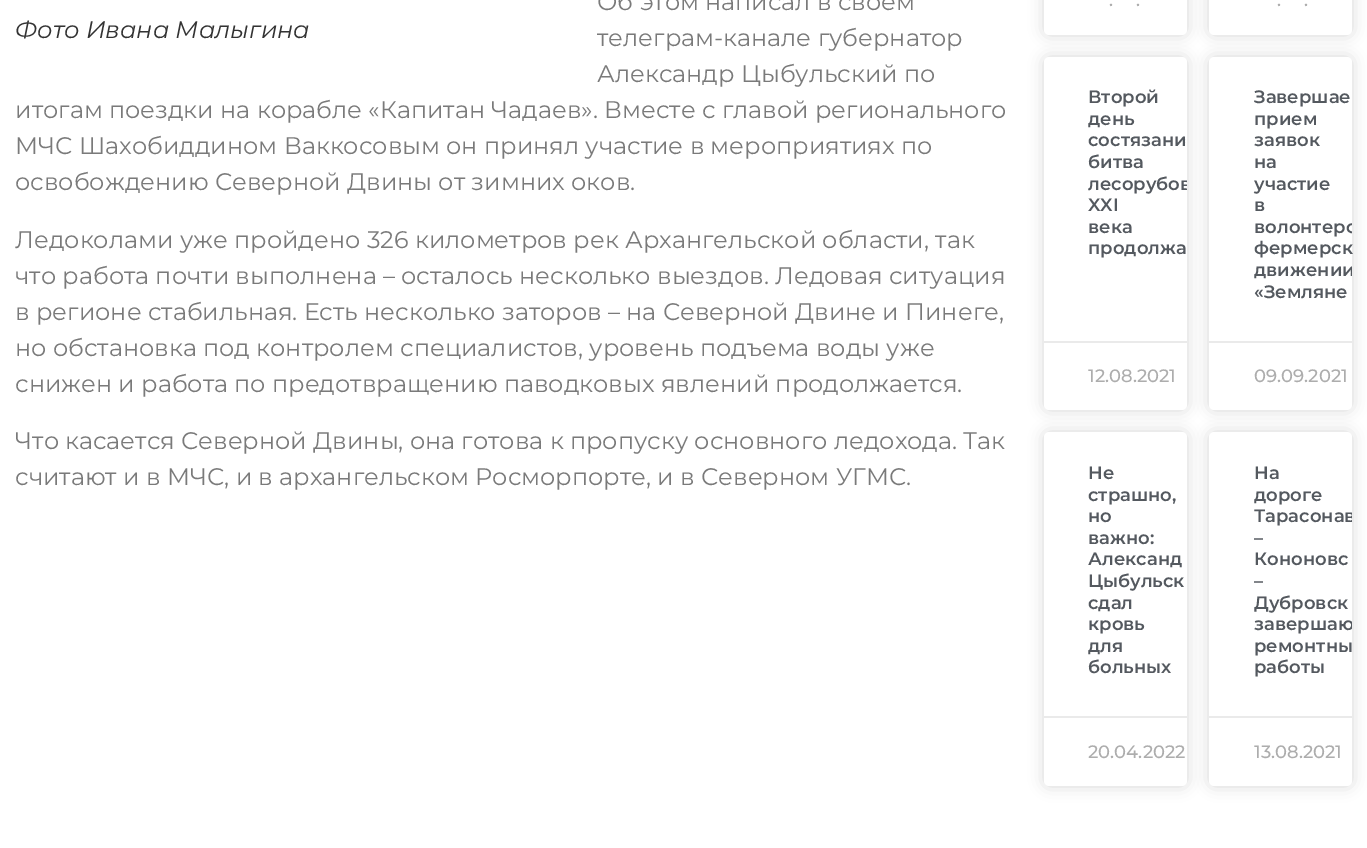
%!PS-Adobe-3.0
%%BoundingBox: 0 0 1367 848
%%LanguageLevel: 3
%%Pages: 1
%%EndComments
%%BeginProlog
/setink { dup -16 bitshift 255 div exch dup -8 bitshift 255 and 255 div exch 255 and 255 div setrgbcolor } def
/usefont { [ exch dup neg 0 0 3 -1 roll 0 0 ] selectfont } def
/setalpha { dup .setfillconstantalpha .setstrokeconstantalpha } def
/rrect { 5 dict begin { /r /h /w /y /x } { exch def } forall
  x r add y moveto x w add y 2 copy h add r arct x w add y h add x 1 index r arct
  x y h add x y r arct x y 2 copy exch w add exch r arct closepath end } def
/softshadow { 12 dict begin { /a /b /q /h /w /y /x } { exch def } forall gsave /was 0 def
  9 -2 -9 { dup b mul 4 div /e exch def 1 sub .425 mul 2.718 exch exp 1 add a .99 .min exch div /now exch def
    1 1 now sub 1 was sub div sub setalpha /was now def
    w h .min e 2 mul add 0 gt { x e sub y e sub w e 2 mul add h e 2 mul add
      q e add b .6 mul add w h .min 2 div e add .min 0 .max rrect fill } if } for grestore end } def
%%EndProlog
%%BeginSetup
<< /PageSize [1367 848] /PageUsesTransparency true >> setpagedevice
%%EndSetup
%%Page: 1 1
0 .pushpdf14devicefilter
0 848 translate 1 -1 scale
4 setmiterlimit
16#FFFFFF setink
0 0 1367 848 rectfill
/Montserrat-Regular 24 usefont
16#7A7A7A setink
[
    [(Об этом написал в своем) 597 10]
    [(телеграм-канале губернатор) 597 46]
    [(Александр Цыбульский по) 597 82]
    [(итогам поездки на корабле «Капитан Чадаев». Вместе с главой регионального) 15 118]
    [(МЧС Шахобиддином Ваккосовым он принял участие в мероприятиях по) 15 154]
    [(освобождению Северной Двины от зимних оков.) 15 190]
] { aload pop moveto show } forall
/Montserrat-Italic 24 usefont
16#333333 setink
15 38 moveto (Фото Ивана Малыгина) show
/Montserrat-Regular 24 usefont
16#7A7A7A setink
[
    [(Ледоколами уже пройдено 326 километров рек Архангельской области, так) 15 248]
    [(что работа почти выполнена – осталось несколько выездов. Ледовая ситуация) 15 284]
    [(в регионе стабильная. Есть несколько заторов – на Северной Двине и Пинеге,) 15 320]
    [(но обстановка под контролем специалистов, уровень подъема воды уже) 15 356]
    [(снижен и работа по предотвращению паводковых явлений продолжается.) 15 392]
    [(Что касается Северной Двины, она готова к пропуску основного ледохода. Так) 15 449]
    [(считают и в МЧС, и в архангельском Росморпорте, и в Северном УГМС.) 15 485]
] { aload pop moveto show } forall
16#000000 setink
1044 -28 143 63 5 7.5 0.15 softshadow
16#FFFFFF setink
1044 -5 143 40 5 rrect fill
/Montserrat-Medium 18 usefont
16#ADADAD setink
1109 6 moveto (.) show
1136 6 moveto (.) show
16#000000 setink
1209 -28 143 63 5 7.5 0.15 softshadow
16#FFFFFF setink
1209 -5 143 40 5 rrect fill
16#ADADAD setink
1277 6 moveto (.) show
1304 6 moveto (.) show
16#000000 setink
1044 57 143 353 5 7.5 0.15 softshadow
16#FFFFFF setink
1044 57 143 353 5 rrect fill
/Montserrat-SemiBold 18 usefont
16#54595F setink
[
    [(Второй) 1088 103]
    [(день) 1088 125]
    [(состязани) 1088 146]
    [(битва) 1088 168]
] { aload pop moveto show } forall
gsave
1044 57 143 353 5 rrect clip newpath
1088 190 moveto (лесорубов) show
grestore
[
    [(XXI) 1088 211]
    [(века) 1088 233]
    [(продолжа) 1088 254]
] { aload pop moveto show } forall
16#EAEAEA setink
1044 341 143 2 rectfill
/Montserrat-Medium 18 usefont
16#ADADAD setink
1088 382 moveto (12.08.2021) show
16#000000 setink
1209 57 143 353 5 7.5 0.15 softshadow
16#FFFFFF setink
1209 57 143 353 5 rrect fill
/Montserrat-SemiBold 18 usefont
16#54595F setink
[
    [(Завершае) 1254 103]
    [(прием) 1254 125]
    [(заявок) 1254 146]
    [(на) 1254 168]
    [(участие) 1254 190]
    [(в) 1254 211]
] { aload pop moveto show } forall
gsave
1209 57 143 353 5 rrect clip newpath
1254 233 moveto (волонтерс) show
grestore
1254 254 moveto (фермерск) show
gsave
1209 57 143 353 5 rrect clip newpath
1254 276 moveto (движении) show
grestore
1254 298 moveto («Земляне) show
16#EAEAEA setink
1209 341 143 2 rectfill
/Montserrat-Medium 18 usefont
16#ADADAD setink
1254 382 moveto (09.09.2021) show
16#000000 setink
1044 432 143 354 5 7.5 0.15 softshadow
16#FFFFFF setink
1044 432 143 354 5 rrect fill
/Montserrat-SemiBold 18 usefont
16#54595F setink
[
    [(Не) 1088 479]
    [(страшно,) 1088 501]
    [(но) 1088 522]
    [(важно:) 1088 544]
    [(Александ) 1088 565]
    [(Цыбульск) 1088 587]
    [(сдал) 1088 609]
    [(кровь) 1088 630]
    [(для) 1088 652]
    [(больных) 1088 673]
] { aload pop moveto show } forall
16#EAEAEA setink
1044 716 143 2 rectfill
/Montserrat-Medium 18 usefont
16#ADADAD setink
1088 758 moveto (20.04.2022) show
16#000000 setink
1209 432 143 354 5 7.5 0.15 softshadow
16#FFFFFF setink
1209 432 143 354 5 rrect fill
/Montserrat-SemiBold 18 usefont
16#54595F setink
1254 479 moveto (На) show
1254 501 moveto (дороге) show
gsave
1209 432 143 354 5 rrect clip newpath
1254 522 moveto (Тарасонав) show
grestore
[
    [(–) 1254 544]
    [(Кононовс) 1254 565]
    [(–) 1254 587]
    [(Дубровск) 1254 609]
] { aload pop moveto show } forall
gsave
1209 432 143 354 5 rrect clip newpath
1254 630 moveto (завершаю) show
grestore
1254 652 moveto (ремонтны) show
1254 673 moveto (работы) show
16#EAEAEA setink
1209 716 143 2 rectfill
/Montserrat-Medium 18 usefont
16#ADADAD setink
1254 758 moveto (13.08.2021) show
.poppdf14devicefilter showpage
%%EOF
